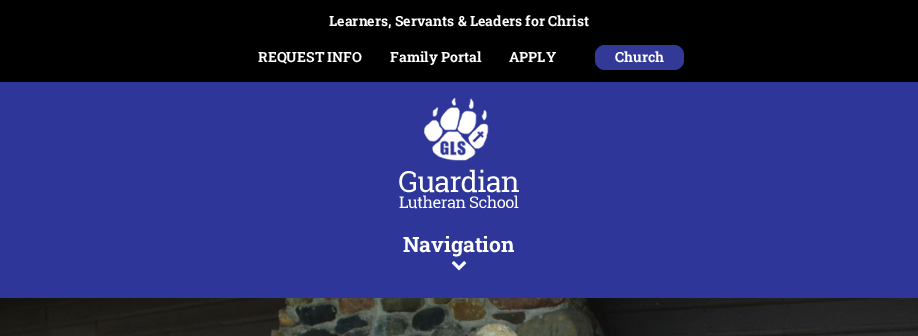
%!PS-Adobe-3.0
%%BoundingBox: 0 0 918 336
%%LanguageLevel: 3
%%Pages: 1
%%EndComments
%%BeginProlog
/setink { dup -16 bitshift 255 div exch dup -8 bitshift 255 and 255 div exch 255 and 255 div setrgbcolor } def
/usefont { [ exch dup neg 0 0 3 -1 roll 0 0 ] selectfont } def
/rrect { 5 dict begin { /r /h /w /y /x } { exch def } forall
  x r add y moveto x w add y 2 copy h add r arct x w add y h add x 1 index r arct
  x y h add x y r arct x y 2 copy exch w add exch r arct closepath end } def
/drawimage { 5 dict begin { /h /w /y /x /name } { exch def } forall
  gsave x y translate w h scale
  w h 8 [w 0 0 h 0 0] name (r) file false 3 colorimage grestore end } def
%%EndProlog
%%BeginSetup
<< /PageSize [918 336] >> setpagedevice
%%EndSetup
%%Page: 1 1
0 336 translate 1 -1 scale
4 setmiterlimit
16#FFFFFF setink
0 0 918 336 rectfill
16#2E3699 setink
0 82 918 216 rectfill
16#000000 setink
0 0 918 82 rectfill
/RobotoSlab-Bold 14 usefont
16#FFFFFF setink
[
    [(Learners, Servants & Leaders for Christ) 329 26]
    [(REQUEST INFO) 258 62]
    [(Family Portal) 390 62]
    [(APPLY) 509 62]
] { aload pop moveto show } forall
16#323997 setink
595 45 89 25 10 rrect fill
16#FFFFFF setink
615 62 moveto (Church) show
(img1.raw) 399 98 120 111 drawimage
/RobotoSlab-Bold 21 usefont
403 252 moveto (Navigation) show
(img2.raw) 451 261 16 10 drawimage
(img3.raw) 0 298 918 38 drawimage
showpage
%%EOF
